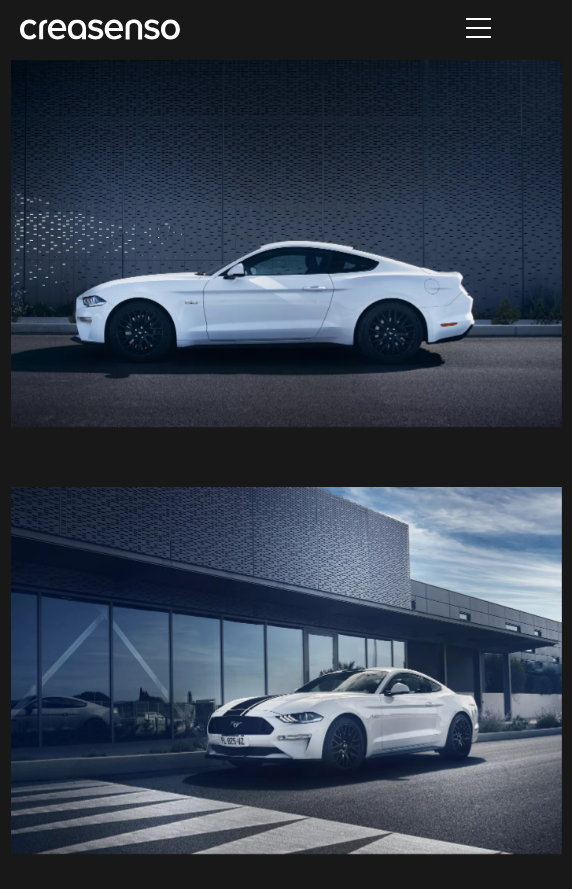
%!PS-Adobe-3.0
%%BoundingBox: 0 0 572 889
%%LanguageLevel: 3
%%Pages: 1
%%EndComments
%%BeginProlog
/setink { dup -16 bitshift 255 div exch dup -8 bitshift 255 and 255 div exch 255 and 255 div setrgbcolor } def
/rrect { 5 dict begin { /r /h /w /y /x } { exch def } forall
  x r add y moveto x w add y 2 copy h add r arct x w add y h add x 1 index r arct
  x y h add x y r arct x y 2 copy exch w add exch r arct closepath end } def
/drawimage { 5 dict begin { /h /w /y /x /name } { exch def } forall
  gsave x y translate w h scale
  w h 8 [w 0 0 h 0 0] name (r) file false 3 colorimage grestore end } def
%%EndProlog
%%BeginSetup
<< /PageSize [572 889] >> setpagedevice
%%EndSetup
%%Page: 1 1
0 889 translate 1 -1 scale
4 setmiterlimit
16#181818 setink
0 0 572 889 rectfill
(img1.raw) 20 19 160 21 drawimage
16#FFFFFF setink
466 18 25 2 1 rrect fill
466 27 25 2 1 rrect fill
466 36 25 2 1 rrect fill
(img2.raw) 11 60 551 368 drawimage
(img3.raw) 11 487 551 368 drawimage
showpage
%%EOF
